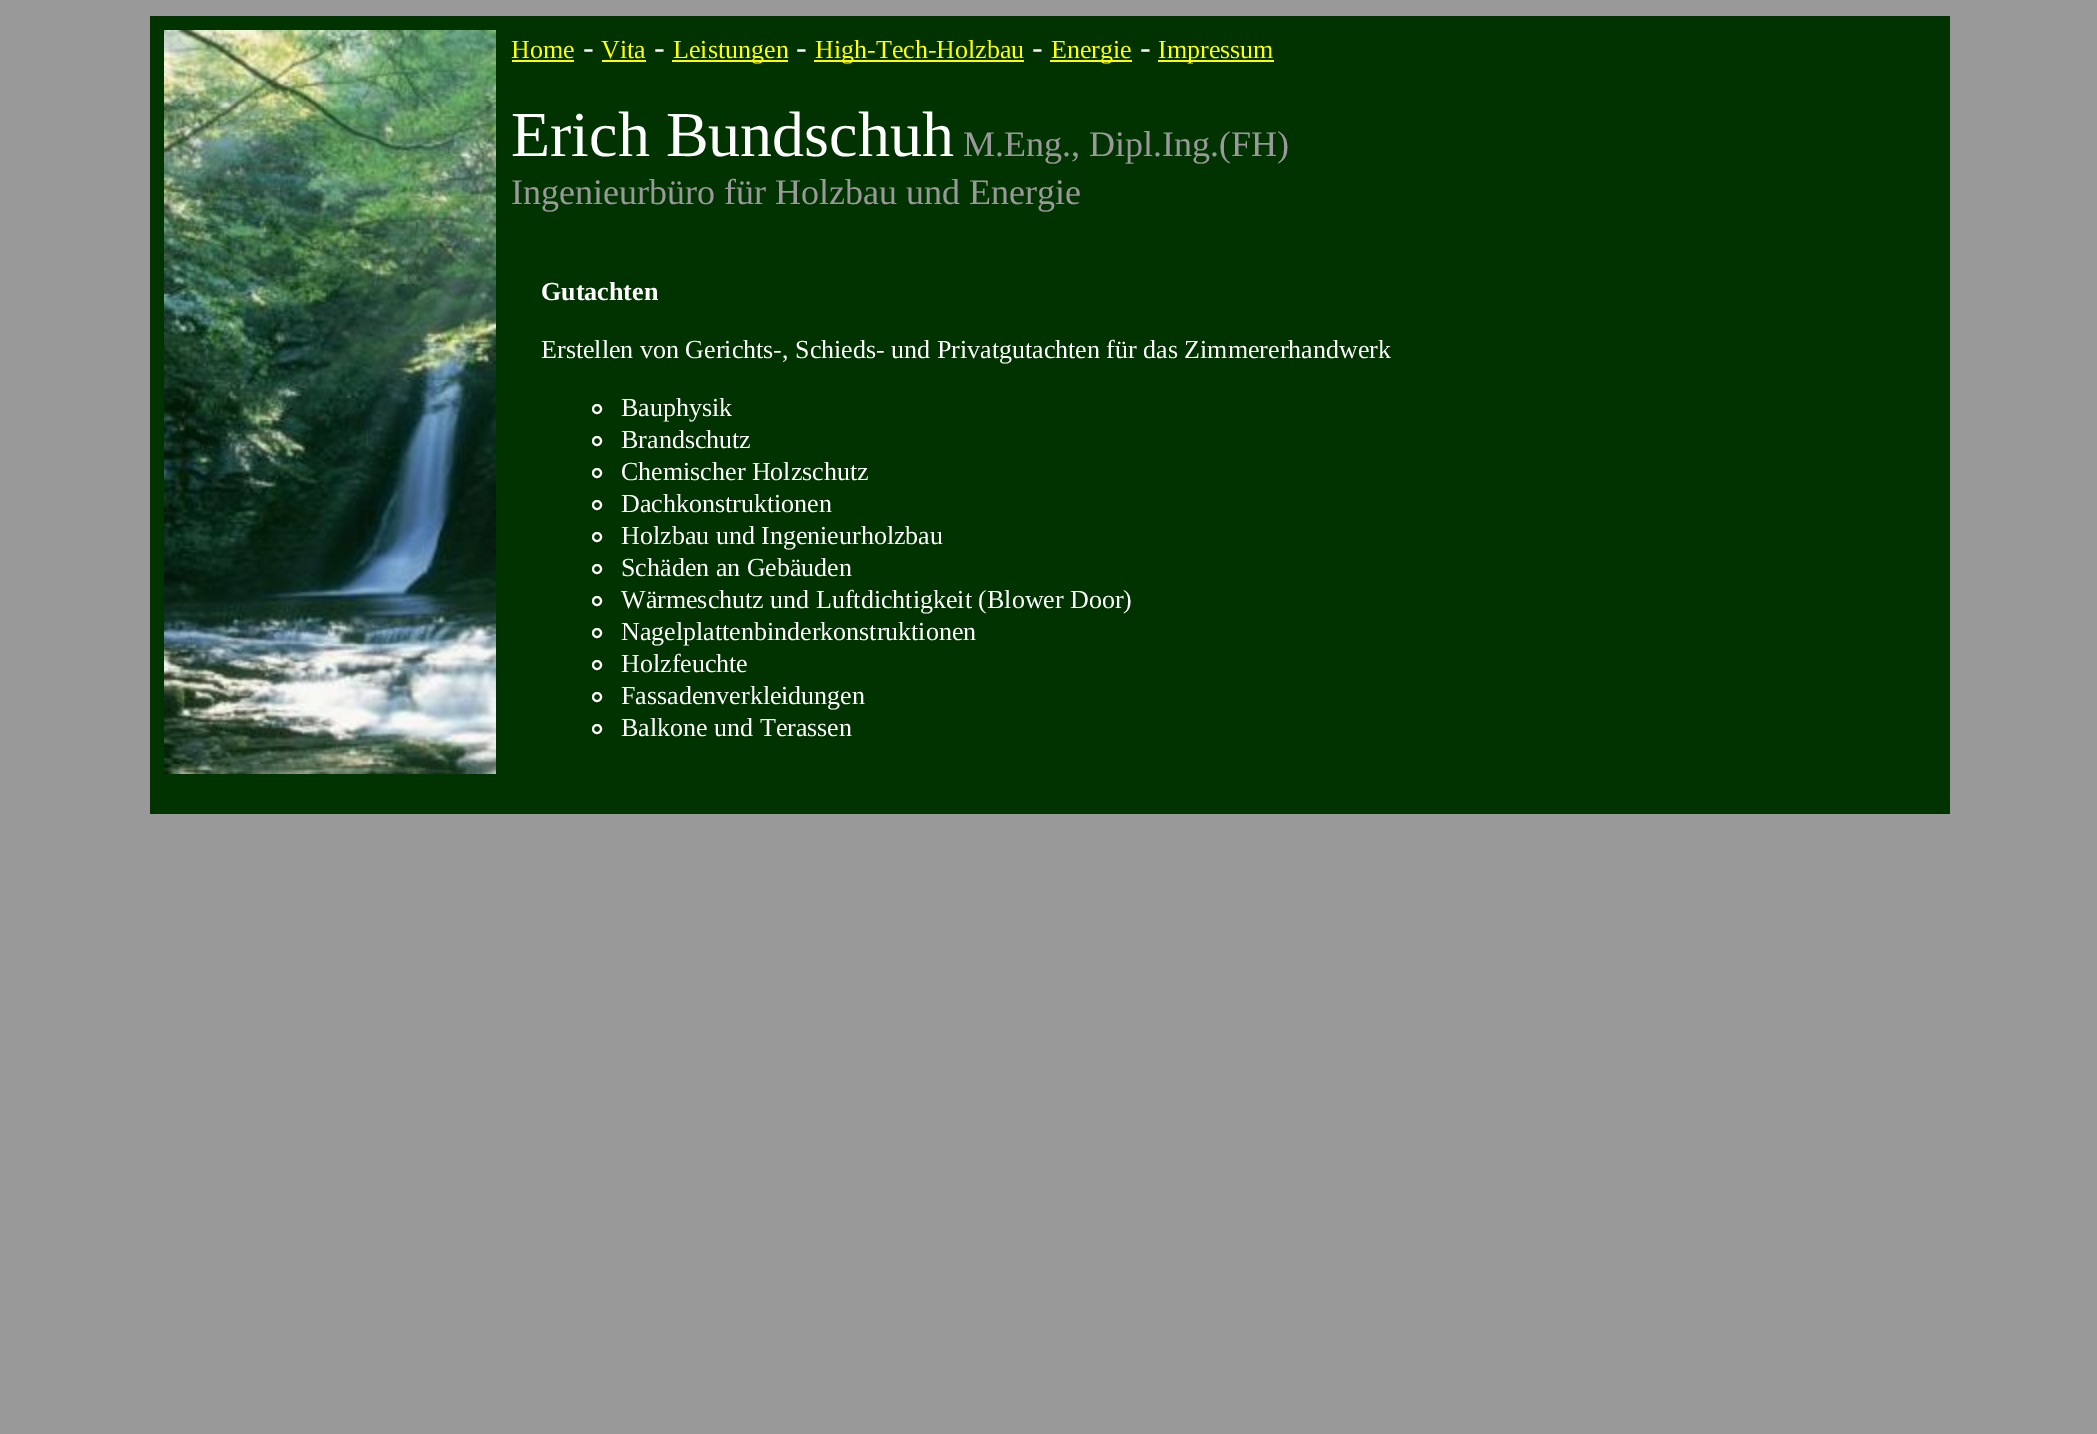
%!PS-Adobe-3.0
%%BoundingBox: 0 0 2097 1434
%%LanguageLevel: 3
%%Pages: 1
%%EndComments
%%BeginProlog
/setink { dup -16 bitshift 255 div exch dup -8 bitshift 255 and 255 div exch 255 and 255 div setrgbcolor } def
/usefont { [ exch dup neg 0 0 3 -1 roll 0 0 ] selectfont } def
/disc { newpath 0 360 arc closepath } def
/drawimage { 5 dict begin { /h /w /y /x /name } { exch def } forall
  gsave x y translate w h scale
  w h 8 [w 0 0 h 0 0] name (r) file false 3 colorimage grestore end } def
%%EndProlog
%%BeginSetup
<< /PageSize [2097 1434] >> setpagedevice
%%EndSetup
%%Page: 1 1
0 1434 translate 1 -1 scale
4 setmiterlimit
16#999999 setink
0 0 2097 1434 rectfill
16#003300 setink
150 16 1800 798 rectfill
(img1.raw) 164 30 332 744 drawimage
/LiberationSerif-Regular 26 usefont
16#FFFF00 setink
511 58 moveto (Home) show
512 60 62 2 rectfill
/LiberationSerif-Regular 32 usefont
16#FFFFFF setink
583 58 moveto (-) show
/LiberationSerif-Regular 26 usefont
16#FFFF00 setink
601 58 moveto (Vita) show
602 60 44 2 rectfill
/LiberationSerif-Regular 32 usefont
16#FFFFFF setink
654 58 moveto (-) show
16#FFFF00 setink
672 60 116 2 rectfill
/LiberationSerif-Regular 26 usefont
673 58 moveto (Leistungen) show
/LiberationSerif-Regular 32 usefont
16#FFFFFF setink
796 58 moveto (-) show
16#FFFF00 setink
814 60 210 2 rectfill
/LiberationSerif-Regular 26 usefont
815 58 moveto (High-Tech-Holzbau) show
/LiberationSerif-Regular 32 usefont
16#FFFFFF setink
1032 58 moveto (-) show
16#FFFF00 setink
1050 60 82 2 rectfill
/LiberationSerif-Regular 26 usefont
1051 58 moveto (Energie) show
/LiberationSerif-Regular 32 usefont
16#FFFFFF setink
1140 58 moveto (-) show
16#FFFF00 setink
1158 60 116 2 rectfill
/LiberationSerif-Regular 26 usefont
1158 58 moveto (Impressum) show
/LiberationSerif-Regular 64 usefont
16#FFFFFF setink
511 156 moveto (Erich Bundschuh) show
/LiberationSerif-Regular 36 usefont
16#999999 setink
963 156 moveto (M.Eng., Dipl.Ing.\(FH\)) show
511 204 moveto (Ingenieurbüro für Holzbau und Energie) show
/LiberationSerif-Bold 26 usefont
16#FFFFFF setink
541 300 moveto (Gutachten) show
/LiberationSerif-Regular 26 usefont
541 358 moveto (Erstellen von Gerichts-, Schieds- und Privatgutachten für das Zimmererhandwerk) show
2 setlinewidth
597 409 4 disc stroke
621 416 moveto (Bauphysik) show
597 441 4 disc stroke
621 448 moveto (Brandschutz) show
597 473 4 disc stroke
621 480 moveto (Chemischer Holzschutz) show
597 505 4 disc stroke
621 512 moveto (Dachkonstruktionen) show
597 537 4 disc stroke
621 544 moveto (Holzbau und Ingenieurholzbau) show
597 569 4 disc stroke
621 576 moveto (Schäden an Gebäuden) show
597 601 4 disc stroke
621 608 moveto (Wärmeschutz und Luftdichtigkeit \(Blower Door\)) show
597 633 4 disc stroke
621 640 moveto (Nagelplattenbinderkonstruktionen) show
597 665 4 disc stroke
621 672 moveto (Holzfeuchte) show
597 697 4 disc stroke
621 704 moveto (Fassadenverkleidungen) show
597 729 4 disc stroke
621 736 moveto (Balkone und Terassen) show
showpage
%%EOF
